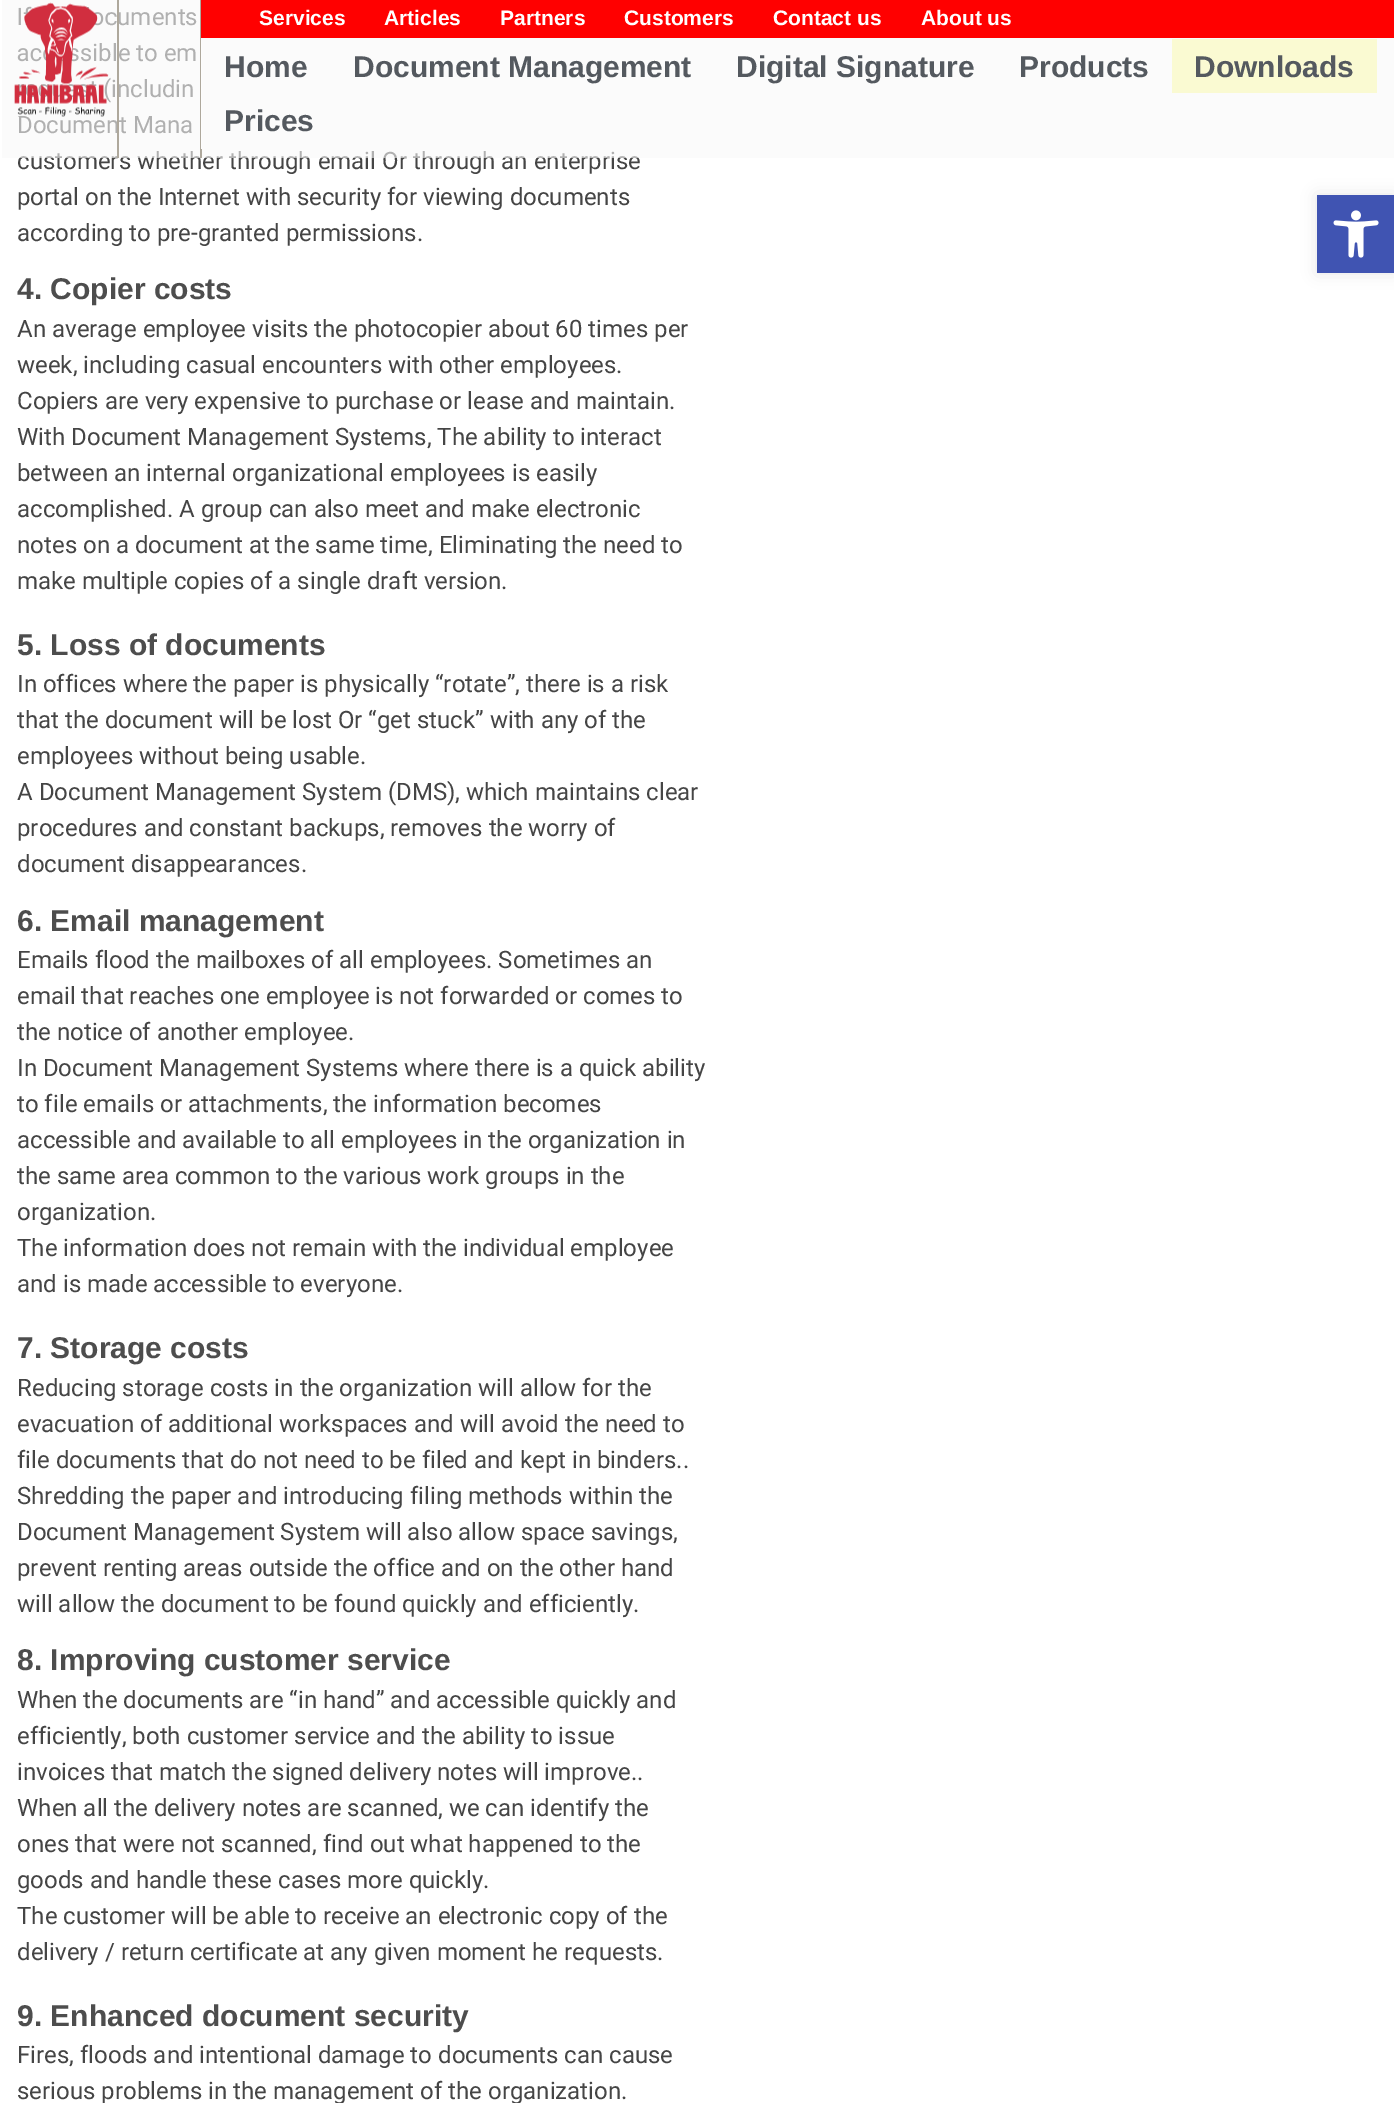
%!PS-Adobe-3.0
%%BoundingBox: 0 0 1394 2103
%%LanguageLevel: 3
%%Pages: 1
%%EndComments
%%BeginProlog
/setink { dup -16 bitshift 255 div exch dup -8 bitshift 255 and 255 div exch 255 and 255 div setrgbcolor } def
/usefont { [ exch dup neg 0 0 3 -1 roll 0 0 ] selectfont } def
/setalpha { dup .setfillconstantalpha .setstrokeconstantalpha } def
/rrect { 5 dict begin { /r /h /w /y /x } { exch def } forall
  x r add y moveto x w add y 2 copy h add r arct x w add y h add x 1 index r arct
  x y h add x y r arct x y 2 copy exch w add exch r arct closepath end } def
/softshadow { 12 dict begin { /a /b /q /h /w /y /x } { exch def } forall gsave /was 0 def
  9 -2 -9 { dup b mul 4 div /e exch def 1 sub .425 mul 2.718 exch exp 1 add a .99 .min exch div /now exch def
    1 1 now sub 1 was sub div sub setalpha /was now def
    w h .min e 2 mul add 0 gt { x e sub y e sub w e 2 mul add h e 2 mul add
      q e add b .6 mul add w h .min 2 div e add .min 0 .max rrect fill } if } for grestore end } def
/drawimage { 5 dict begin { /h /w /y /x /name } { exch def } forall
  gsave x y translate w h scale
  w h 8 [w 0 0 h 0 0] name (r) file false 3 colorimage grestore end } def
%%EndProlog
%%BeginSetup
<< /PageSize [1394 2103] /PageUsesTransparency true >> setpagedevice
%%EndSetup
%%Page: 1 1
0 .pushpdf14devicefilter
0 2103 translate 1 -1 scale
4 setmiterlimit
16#FFFFFF setink
0 0 1394 2103 rectfill
/Roboto-Regular 24 usefont
16#454545 setink
[
    [(I) 17 25]
    [(ocuments) 91 25]
    [(ac) 17 61]
    [(sible to em) 80 61]
    [(\(includin) 103 97]
    [(Document Mana) 17 133]
    [(customers whether through email Or through an enterprise) 17 169]
    [(portal on the Internet with security for viewing documents) 17 205]
    [(according to pre-granted permissions.) 17 241]
] { aload pop moveto show } forall
/LiberationSans-Bold 30 usefont
16#4D4D4D setink
17 299 moveto (4. Copier costs) show
/Roboto-Regular 24 usefont
16#454545 setink
[
    [(An average employee visits the photocopier about 60 times per) 17 337]
    [(week, including casual encounters with other employees.) 17 373]
    [(Copiers are very expensive to purchase or lease and maintain.) 17 409]
    [(With Document Management Systems, The ability to interact) 17 445]
    [(between an internal organizational employees is easily) 17 481]
    [(accomplished. A group can also meet and make electronic) 17 517]
    [(notes on a document at the same time, Eliminating the need to) 17 553]
    [(make multiple copies of a single draft version.) 17 589]
] { aload pop moveto show } forall
/LiberationSans-Bold 30 usefont
16#4D4D4D setink
17 655 moveto (5. Loss of documents) show
/Roboto-Regular 24 usefont
16#454545 setink
[
    [(In offices where the paper is physically “rotate”, there is a risk) 17 692]
    [(that the document will be lost Or “get stuck” with any of the) 17 728]
    [(employees without being usable.) 17 764]
    [(A Document Management System \(DMS\), which maintains clear) 17 800]
    [(procedures and constant backups, removes the worry of) 17 836]
    [(document disappearances.) 17 872]
] { aload pop moveto show } forall
/LiberationSans-Bold 30 usefont
16#4D4D4D setink
17 931 moveto (6. Email management) show
/Roboto-Regular 24 usefont
16#454545 setink
[
    [(Emails flood the mailboxes of all employees. Sometimes an) 17 968]
    [(email that reaches one employee is not forwarded or comes to) 17 1004]
    [(the notice of another employee.) 17 1040]
    [(In Document Management Systems where there is a quick ability) 17 1076]
    [(to file emails or attachments, the information becomes) 17 1112]
    [(accessible and available to all employees in the organization in) 17 1148]
    [(the same area common to the various work groups in the) 17 1184]
    [(organization.) 17 1220]
    [(The information does not remain with the individual employee) 17 1256]
    [(and is made accessible to everyone.) 17 1292]
] { aload pop moveto show } forall
/LiberationSans-Bold 30 usefont
16#4D4D4D setink
17 1358 moveto (7. Storage costs) show
/Roboto-Regular 24 usefont
16#454545 setink
[
    [(Reducing storage costs in the organization will allow for the) 17 1396]
    [(evacuation of additional workspaces and will avoid the need to) 17 1432]
    [(file documents that do not need to be filed and kept in binders..) 17 1468]
    [(Shredding the paper and introducing filing methods within the) 17 1504]
    [(Document Management System will also allow space savings,) 17 1540]
    [(prevent renting areas outside the office and on the other hand) 17 1576]
    [(will allow the document to be found quickly and efficiently.) 17 1612]
] { aload pop moveto show } forall
/LiberationSans-Bold 30 usefont
16#4D4D4D setink
17 1670 moveto (8. Improving customer service) show
/Roboto-Regular 24 usefont
16#454545 setink
[
    [(When the documents are “in hand” and accessible quickly and) 17 1708]
    [(efficiently, both customer service and the ability to issue) 17 1744]
    [(invoices that match the signed delivery notes will improve..) 17 1780]
    [(When all the delivery notes are scanned, we can identify the) 17 1816]
    [(ones that were not scanned, find out what happened to the) 17 1852]
    [(goods and handle these cases more quickly.) 17 1888]
    [(The customer will be able to receive an electronic copy of the) 17 1924]
    [(delivery / return certificate at any given moment he requests.) 17 1960]
] { aload pop moveto show } forall
/LiberationSans-Bold 30 usefont
16#4D4D4D setink
17 2026 moveto (9. Enhanced document security) show
/Roboto-Regular 24 usefont
16#454545 setink
17 2063 moveto (Fires, floods and intentional damage to documents can cause) show
17 2099 moveto (serious problems in the management of the organization.) show
0.6 setalpha
16#F8F8F8 setink
2 0 1392 158 rectfill
1 setalpha
16#AEA89C setink
117 0 2 158 rectfill
(img1.raw) 14 2 95 115 drawimage
200 0 2 158 rectfill
16#FF0000 setink
201 0 1193 38 rectfill
/LiberationSans-Bold 21 usefont
16#FFFFFF setink
[
    [(Services) 259 25]
    [(Articles) 384 25]
    [(Partners) 500 25]
    [(Customers) 624 25]
    [(Contact us) 773 25]
    [(About us) 921 25]
] { aload pop moveto show } forall
16#FDFDFD setink
201 38 1 111 rectfill
/LiberationSans-Bold 30 usefont
16#54595F setink
[
    [(Home) 224 77]
    [(Document Management) 353 77]
    [(Digital Signature) 736 77]
    [(Products) 1019 77]
] { aload pop moveto show } forall
16#FAFAD2 setink
1172 39 205 54 rectfill
16#54595F setink
1194 77 moveto (Downloads) show
224 131 moveto (Prices) show
16#000000 setink
1317 195 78 78 0 7.5 0.1 softshadow
16#4054B2 setink
1317 195 77 78 rectfill
(img2.raw) 1333 210 46 48 drawimage
.poppdf14devicefilter showpage
%%EOF
